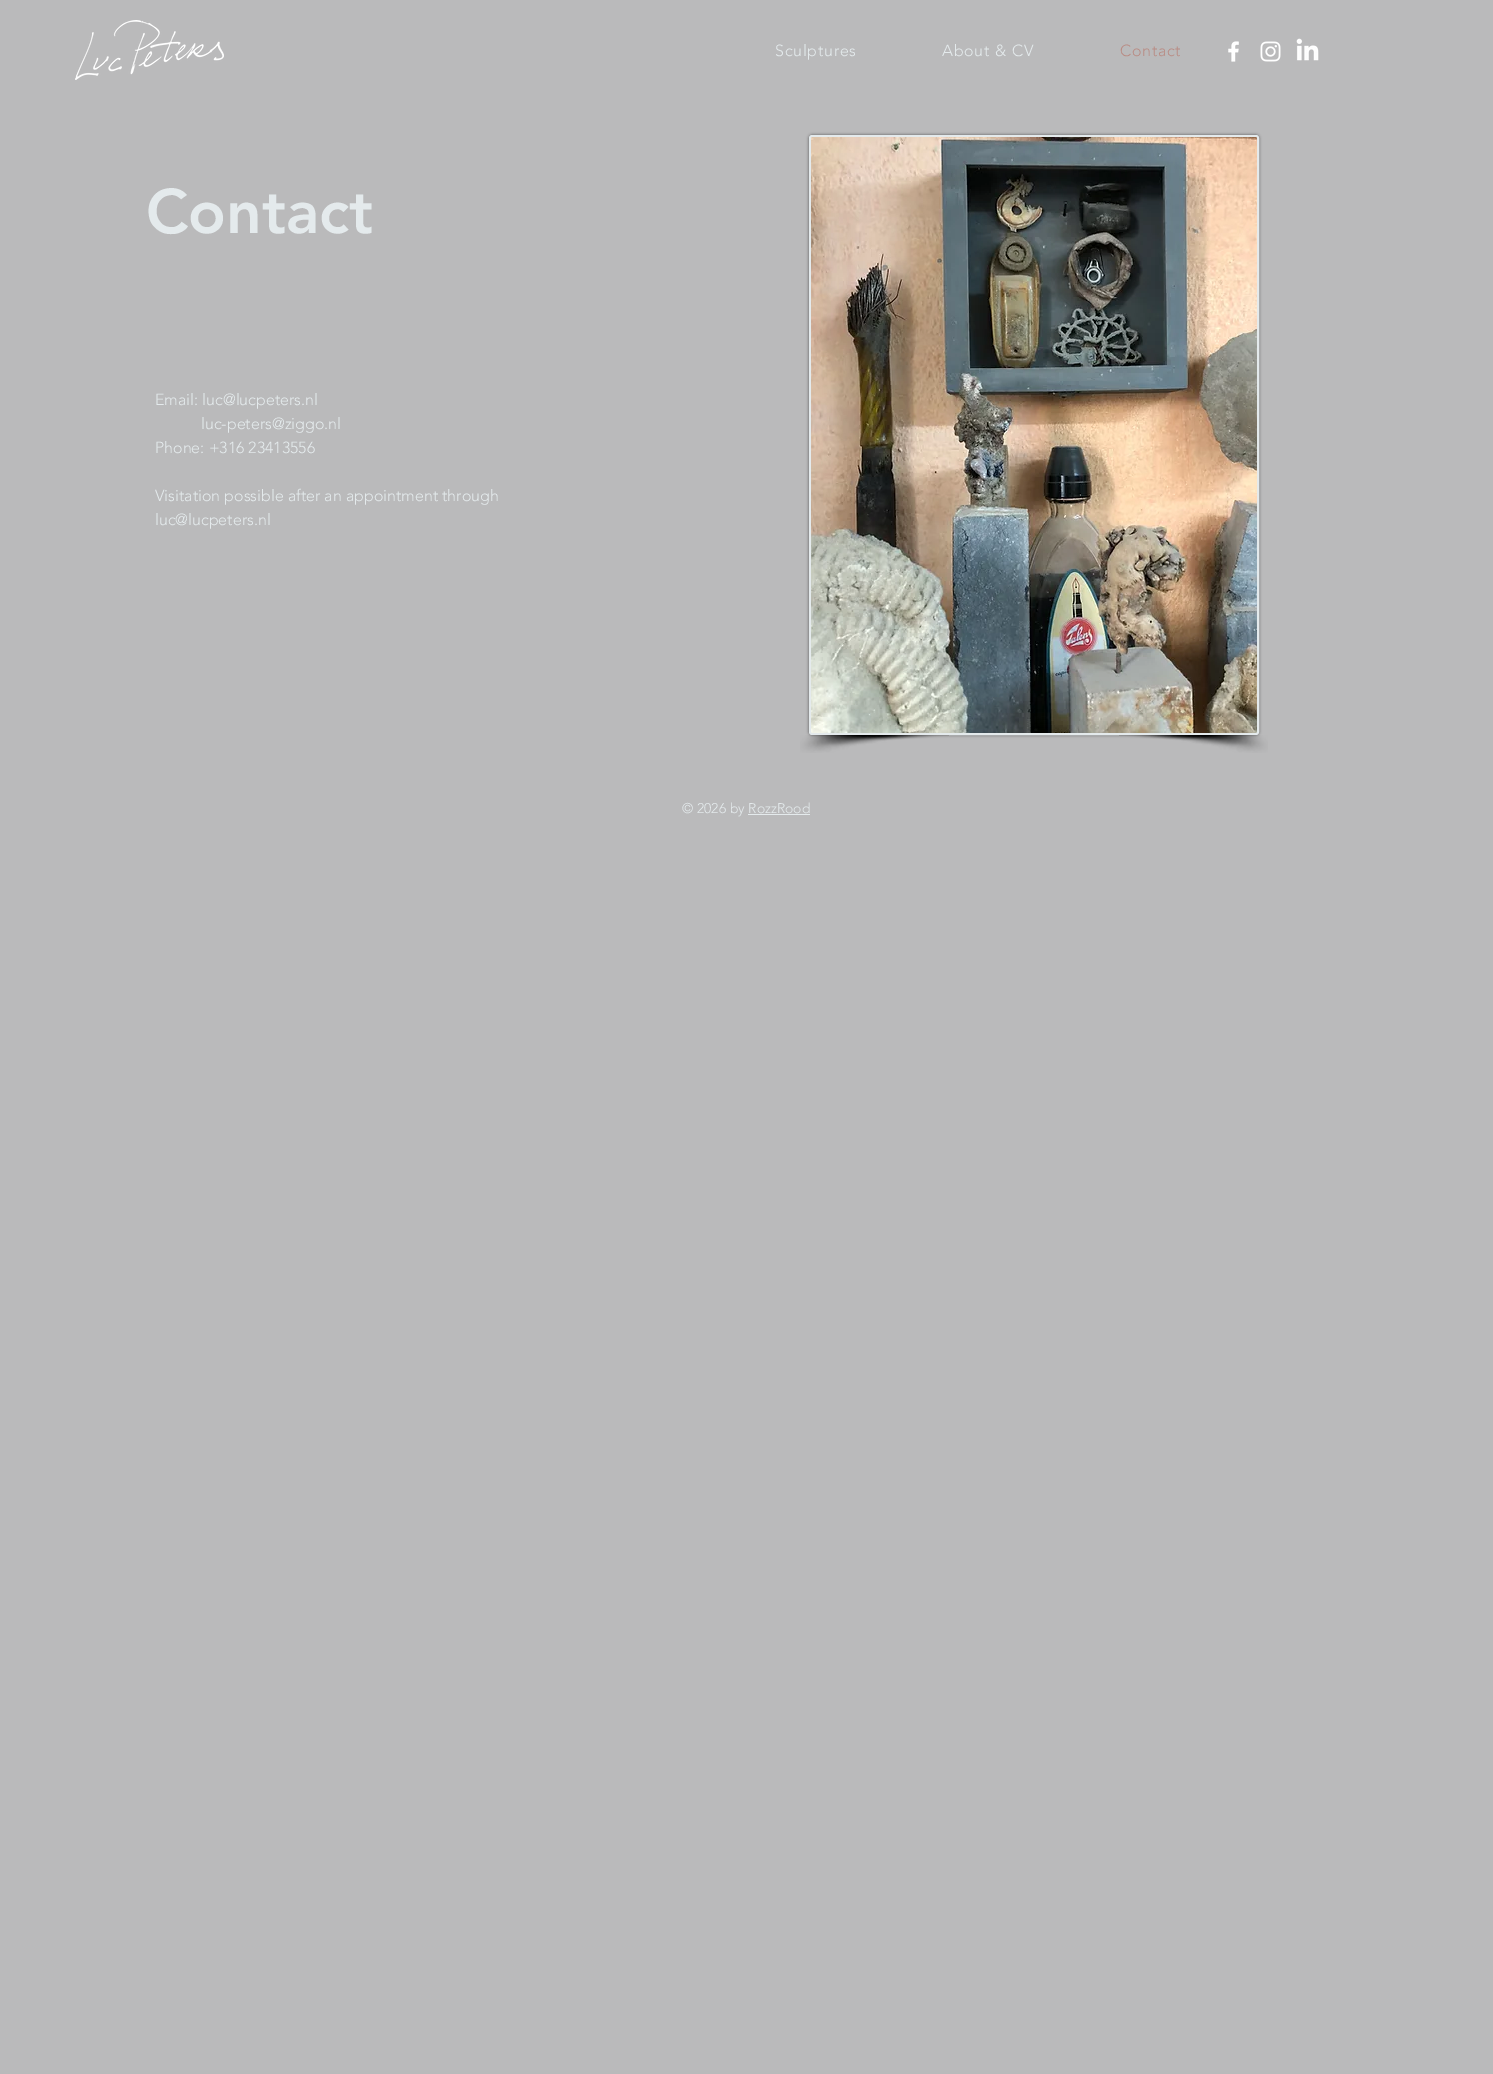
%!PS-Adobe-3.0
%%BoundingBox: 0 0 1493 2074
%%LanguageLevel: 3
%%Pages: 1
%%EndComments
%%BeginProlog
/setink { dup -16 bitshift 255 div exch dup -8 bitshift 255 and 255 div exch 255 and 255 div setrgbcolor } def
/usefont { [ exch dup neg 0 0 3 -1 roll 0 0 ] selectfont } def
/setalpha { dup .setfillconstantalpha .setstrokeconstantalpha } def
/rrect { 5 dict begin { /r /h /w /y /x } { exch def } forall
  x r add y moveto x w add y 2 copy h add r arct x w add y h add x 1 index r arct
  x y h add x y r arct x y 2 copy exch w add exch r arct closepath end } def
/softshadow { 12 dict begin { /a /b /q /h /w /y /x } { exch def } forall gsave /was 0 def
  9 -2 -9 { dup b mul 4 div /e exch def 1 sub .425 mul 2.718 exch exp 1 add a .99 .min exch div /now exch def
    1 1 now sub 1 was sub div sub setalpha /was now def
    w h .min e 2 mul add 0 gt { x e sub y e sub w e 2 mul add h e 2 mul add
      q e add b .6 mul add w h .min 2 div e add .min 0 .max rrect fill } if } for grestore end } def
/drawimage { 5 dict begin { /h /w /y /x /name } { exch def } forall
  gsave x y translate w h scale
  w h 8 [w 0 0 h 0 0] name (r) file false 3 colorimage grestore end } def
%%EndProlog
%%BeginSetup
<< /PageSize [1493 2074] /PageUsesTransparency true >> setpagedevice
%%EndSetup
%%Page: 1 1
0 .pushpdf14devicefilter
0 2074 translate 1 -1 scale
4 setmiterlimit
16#BABABB setink
0 0 1493 2074 rectfill
(img1.raw) 75 20 149 60 drawimage
/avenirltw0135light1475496-Light 16 usefont
16#E4EAEC setink
775 56 moveto 0.75 0 (Sculptures) ashow
942 56 moveto 0.75 0 (About & CV) ashow
16#B98C84 setink
1120 56 moveto 0.75 0 (Contact) ashow
(img2.raw) 1228 41 11 21 drawimage
(img3.raw) 1260 41 21 21 drawimage
(img4.raw) 1296 38 23 23 drawimage
/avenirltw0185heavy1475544-Black 62 usefont
16#E4EAEC setink
146 233 moveto (Contact) show
/avenirltw0135light1475496-Light 16 usefont
[
    [(Email: luc@lucpeters.nl) 155 405]
    [(luc-peters@ziggo.nl) 201 429]
    [(Phone: +316 23413556) 155 453]
    [(Visitation possible after an appointment through) 155 501]
    [(luc@lucpeters.nl) 155 525]
] { aload pop moveto show } forall
16#000000 setink
809 135 450 600 3 1.5 0.5 softshadow
16#E4EAEC setink
810 136 448 598 2 rrect gsave fill grestore
2 setlinewidth
stroke
(img5.raw) 811 137 446 596 drawimage
(img6.raw) 800 735 149 18 drawimage
(img7.raw) 1119 735 149 18 drawimage
/avenirltw0135light1475496-Light 14 usefont
682 813 moveto (© 2026 by RozzRood) show
748 814 62 1 rectfill
.poppdf14devicefilter showpage
%%EOF
